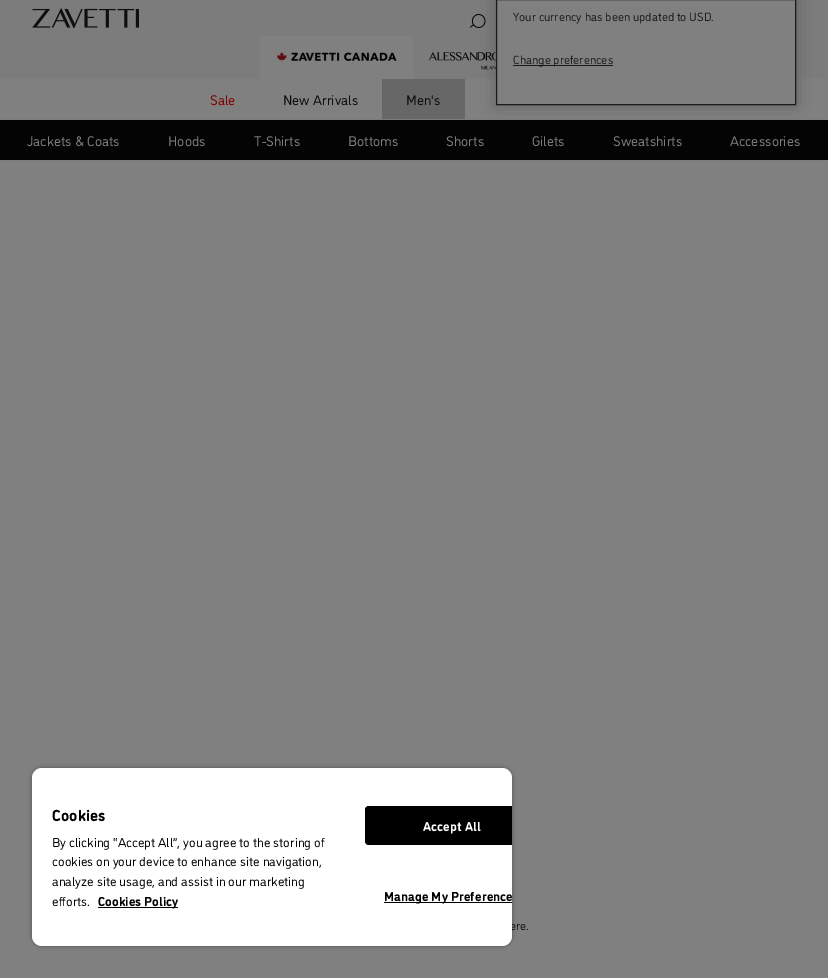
%!PS-Adobe-3.0
%%BoundingBox: 0 0 828 978
%%LanguageLevel: 3
%%Pages: 1
%%EndComments
%%BeginProlog
/setink { dup -16 bitshift 255 div exch dup -8 bitshift 255 and 255 div exch 255 and 255 div setrgbcolor } def
/usefont { [ exch dup neg 0 0 3 -1 roll 0 0 ] selectfont } def
/setalpha { dup .setfillconstantalpha .setstrokeconstantalpha } def
/rrect { 5 dict begin { /r /h /w /y /x } { exch def } forall
  x r add y moveto x w add y 2 copy h add r arct x w add y h add x 1 index r arct
  x y h add x y r arct x y 2 copy exch w add exch r arct closepath end } def
/softshadow { 12 dict begin { /a /b /q /h /w /y /x } { exch def } forall gsave /was 0 def
  9 -2 -9 { dup b mul 4 div /e exch def 1 sub .425 mul 2.718 exch exp 1 add a .99 .min exch div /now exch def
    1 1 now sub 1 was sub div sub setalpha /was now def
    w h .min e 2 mul add 0 gt { x e sub y e sub w e 2 mul add h e 2 mul add
      q e add b .6 mul add w h .min 2 div e add .min 0 .max rrect fill } if } for grestore end } def
/drawimage { 5 dict begin { /h /w /y /x /name } { exch def } forall
  gsave x y translate w h scale
  w h 8 [w 0 0 h 0 0] name (r) file false 3 colorimage grestore end } def
%%EndProlog
%%BeginSetup
<< /PageSize [828 978] /PageUsesTransparency true >> setpagedevice
%%EndSetup
%%Page: 1 1
0 .pushpdf14devicefilter
0 978 translate 1 -1 scale
4 setmiterlimit
16#808080 setink
0 0 828 978 rectfill
16#7C7C7C setink
0 0 828 79 rectfill
(img2.raw) 470 14 16 14 drawimage
(img4.raw) 429 52 67 18 drawimage
0 119 828 1 rectfill
16#040404 setink
0 120 828 40 rectfill
16#404040 setink
496 -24 300 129 0 8 0.5 softshadow
16#808080 setink
496.5 -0.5 moveto 795.5 -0.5 lineto 795.5 104.5 lineto 496.5 104.5 lineto closepath gsave fill grestore
16#1B1B1E setink
stroke
/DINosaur-Regular 12 usefont
513 21 moveto (Your currency has been updated to USD.) show
513 65 100 1 rectfill
513 64 moveto (Change preferences) show
(img1.raw) 32 8 107 20 drawimage
16#808080 setink
260 36 153 43 rectfill
(img3.raw) 277 52 120 11 drawimage
/DINosaur-Regular 14 usefont
16#800000 setink
210 105 moveto (Sale) show
16#0C0C0C setink
283 105 moveto (New Arrivals) show
16#676767 setink
382 79 83 40 rectfill
16#0C0C0C setink
406 105 moveto (Men's) show
16#7C7C7C setink
0 160 828 1 rectfill
[
    [(Jackets & Coats) 27 146]
    [(Hoods) 168 146]
    [(T-Shirts) 254 146]
    [(Bottoms) 348 146]
    [(Shorts) 446 146]
    [(Gilets) 532 146]
    [(Sweatshirts) 613 146]
    [(Accessories) 730 146]
] { aload pop moveto show } forall
/DINosaur-Regular 12 usefont
16#0C0C0C setink
510 930 moveto (ere.) show
16#000000 setink
32 768 480 178 10 2 0.35 softshadow
16#FFFFFF setink
32 768 480 178 10 rrect fill
/DINosaur-Bold 16 usefont
16#000000 setink
52 821 moveto (Cookies) show
/DINosaur-Regular 13 usefont
[
    [(By clicking “Accept All”, you agree to the storing of) 52 847]
    [(cookies on your device to enhance site navigation,) 52 866]
    [(analyze site usage, and assist in our marketing) 52 886]
    [(efforts.) 52 906]
] { aload pop moveto show } forall
98 907 80 1 rectfill
/DINosaur-Bold 13 usefont
98 906 moveto (Cookies Policy) show
369 806 moveto 512 806 lineto 512 845 lineto 369 845 lineto 367 845 365 843 365 841 curveto 365 810 lineto 365 808 367 806 369 806 curveto closepath fill
369 806 moveto 367 806 365 808 365 810 curveto 365 841 lineto 365 843 367 845 369 845 curveto 512 845 lineto 512 844 lineto 369 844 lineto 367 844 366 843 366 841 curveto 366 810 lineto 366 808 367 807 369 807 curveto 512 807 lineto 512 806 lineto closepath fill
16#FFFFFF setink
423 831 moveto 0.1 0 (Accept All) ashow
16#000000 setink
384 902 128 1 rectfill
gsave
32 768 480 178 10 rrect clip newpath
384 901 moveto 0.1 0 (Manage My Preference) ashow
grestore
.poppdf14devicefilter showpage
%%EOF
